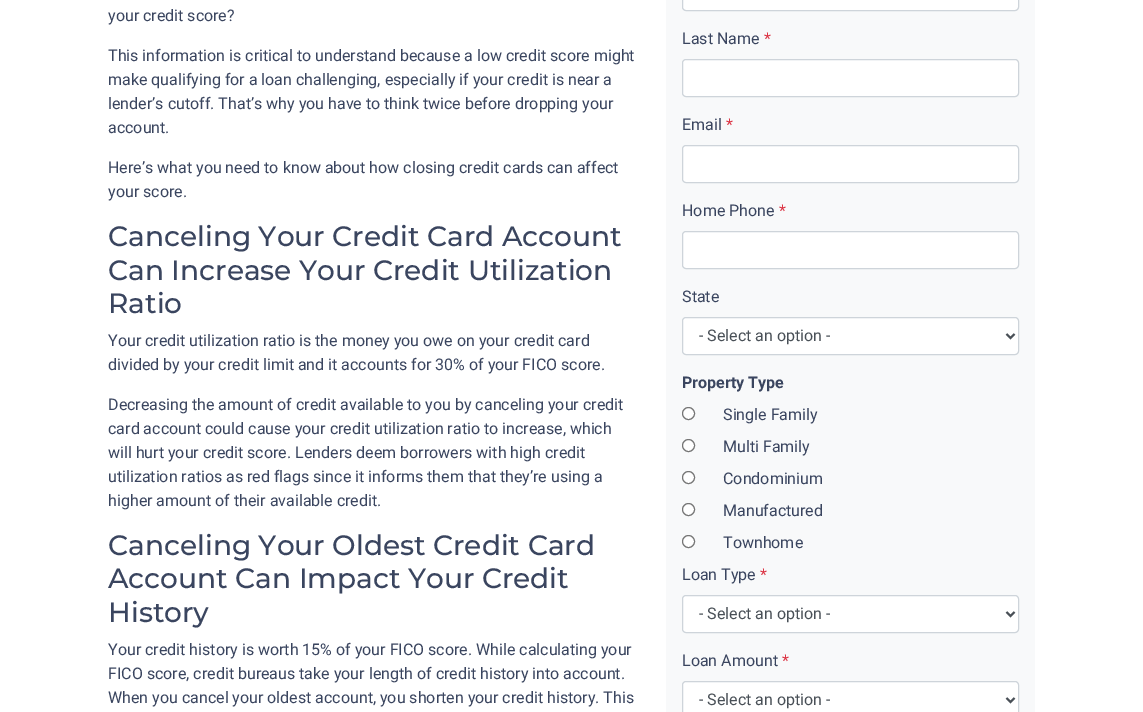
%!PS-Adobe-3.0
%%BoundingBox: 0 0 1143 712
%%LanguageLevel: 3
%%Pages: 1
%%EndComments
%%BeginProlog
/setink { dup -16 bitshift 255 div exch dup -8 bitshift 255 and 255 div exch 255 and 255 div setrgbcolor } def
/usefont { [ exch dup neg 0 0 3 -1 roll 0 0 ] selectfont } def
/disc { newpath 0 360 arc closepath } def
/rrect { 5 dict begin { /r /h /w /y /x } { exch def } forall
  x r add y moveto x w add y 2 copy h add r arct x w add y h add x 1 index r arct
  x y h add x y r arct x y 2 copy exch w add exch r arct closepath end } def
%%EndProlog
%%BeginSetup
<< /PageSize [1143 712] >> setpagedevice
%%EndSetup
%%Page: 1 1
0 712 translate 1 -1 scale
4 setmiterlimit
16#FFFFFF setink
0 0 1143 712 rectfill
/Roboto-Regular 16 usefont
16#3A455F setink
[
    [(your credit score?) 108 21]
    [(This information is critical to understand because a low credit score might) 108 61]
    [(make qualifying for a loan challenging, especially if your credit is near a) 108 85]
    [(lender’s cutoff. That’s why you have to think twice before dropping your) 108 109]
    [(account.) 108 133]
    [(Here’s what you need to know about how closing credit cards can affect) 108 173]
    [(your score.) 108 197]
] { aload pop moveto show } forall
/Montserrat-Medium 28 usefont
[
    [(Canceling Your Credit Card Account) 108 246]
    [(Can Increase Your Credit Utilization) 108 280]
    [(Ratio) 108 313]
] { aload pop moveto show } forall
/Roboto-Regular 16 usefont
[
    [(Your credit utilization ratio is the money you owe on your credit card) 108 346]
    [(divided by your credit limit and it accounts for 30% of your FICO score.) 108 370]
    [(Decreasing the amount of credit available to you by canceling your credit) 108 410]
    [(card account could cause your credit utilization ratio to increase, which) 108 434]
    [(will hurt your credit score. Lenders deem borrowers with high credit) 108 458]
    [(utilization ratios as red flags since it informs them that they’re using a) 108 482]
    [(higher amount of their available credit.) 108 506]
] { aload pop moveto show } forall
/Montserrat-Medium 28 usefont
[
    [(Canceling Your Oldest Credit Card) 108 555]
    [(Account Can Impact Your Credit) 108 588]
    [(History) 108 622]
] { aload pop moveto show } forall
/Roboto-Regular 16 usefont
[
    [(Your credit history is worth 15% of your FICO score. While calculating your) 108 655]
    [(FICO score, credit bureaus take your length of credit history into account.) 108 679]
    [(When you cancel your oldest account, you shorten your credit history. This) 108 703]
] { aload pop moveto show } forall
16#F8F9FA setink
666 0 369 712 rectfill
16#FFFFFF setink
683 -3 335 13 3 rrect fill
16#CED4DA setink
682.5 -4.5 336 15 3.5 rrect stroke
16#3A455F setink
682 44 moveto (Last Name) show
16#DC3545 setink
764 44 moveto (*) show
16#FFFFFF setink
682.5 59.5 336 37 3.5 rrect gsave fill grestore
16#CED4DA setink
stroke
16#3A455F setink
682 130 moveto (Email) show
16#DC3545 setink
726 130 moveto (*) show
16#FFFFFF setink
682.5 145.5 336 37 3.5 rrect gsave fill grestore
16#CED4DA setink
stroke
16#3A455F setink
682 216 moveto (Home Phone) show
16#DC3545 setink
779 216 moveto (*) show
16#FFFFFF setink
682.5 231.5 336 37 3.5 rrect gsave fill grestore
16#CED4DA setink
stroke
16#3A455F setink
682 302 moveto (State) show
16#FFFFFF setink
682.5 317.5 336 37 3.5 rrect gsave fill grestore
16#CED4DA setink
stroke
16#495057 setink
2 setlinewidth
1006.5 334 moveto 1010.5 338 lineto 1014.5 334 lineto stroke
699 341 moveto (- Select an option -) show
/Roboto-Bold 16 usefont
16#3A455F setink
682 388 moveto (Property Type) show
16#FFFFFF setink
688.5 413.5 6 disc gsave fill grestore
16#767676 setink
1 setlinewidth
stroke
/Roboto-Regular 16 usefont
16#3A455F setink
723 420 moveto (Single Family) show
16#FFFFFF setink
688.5 445.5 6 disc gsave fill grestore
16#767676 setink
stroke
16#3A455F setink
723 452 moveto (Multi Family) show
16#FFFFFF setink
688.5 477.5 6 disc gsave fill grestore
16#767676 setink
stroke
16#3A455F setink
723 484 moveto (Condominium) show
16#FFFFFF setink
688.5 509.5 6 disc gsave fill grestore
16#767676 setink
stroke
16#3A455F setink
723 516 moveto (Manufactured) show
16#FFFFFF setink
688.5 541.5 6 disc gsave fill grestore
16#767676 setink
stroke
16#3A455F setink
723 548 moveto (Townhome) show
682 580 moveto (Loan Type) show
16#DC3545 setink
760 580 moveto (*) show
16#FFFFFF setink
682.5 595.5 336 37 3.5 rrect gsave fill grestore
16#CED4DA setink
stroke
16#495057 setink
2 setlinewidth
1006.5 612 moveto 1010.5 616 lineto 1014.5 612 lineto stroke
699 619 moveto (- Select an option -) show
16#3A455F setink
682 666 moveto (Loan Amount) show
16#DC3545 setink
782 666 moveto (*) show
16#FFFFFF setink
683 682 335 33 3 rrect fill
16#CED4DA setink
1 setlinewidth
682.5 681.5 336 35 3.5 rrect stroke
16#495057 setink
2 setlinewidth
1006.5 698 moveto 1010.5 702 lineto 1014.5 698 lineto stroke
699 705 moveto (- Select an option -) show
showpage
%%EOF
